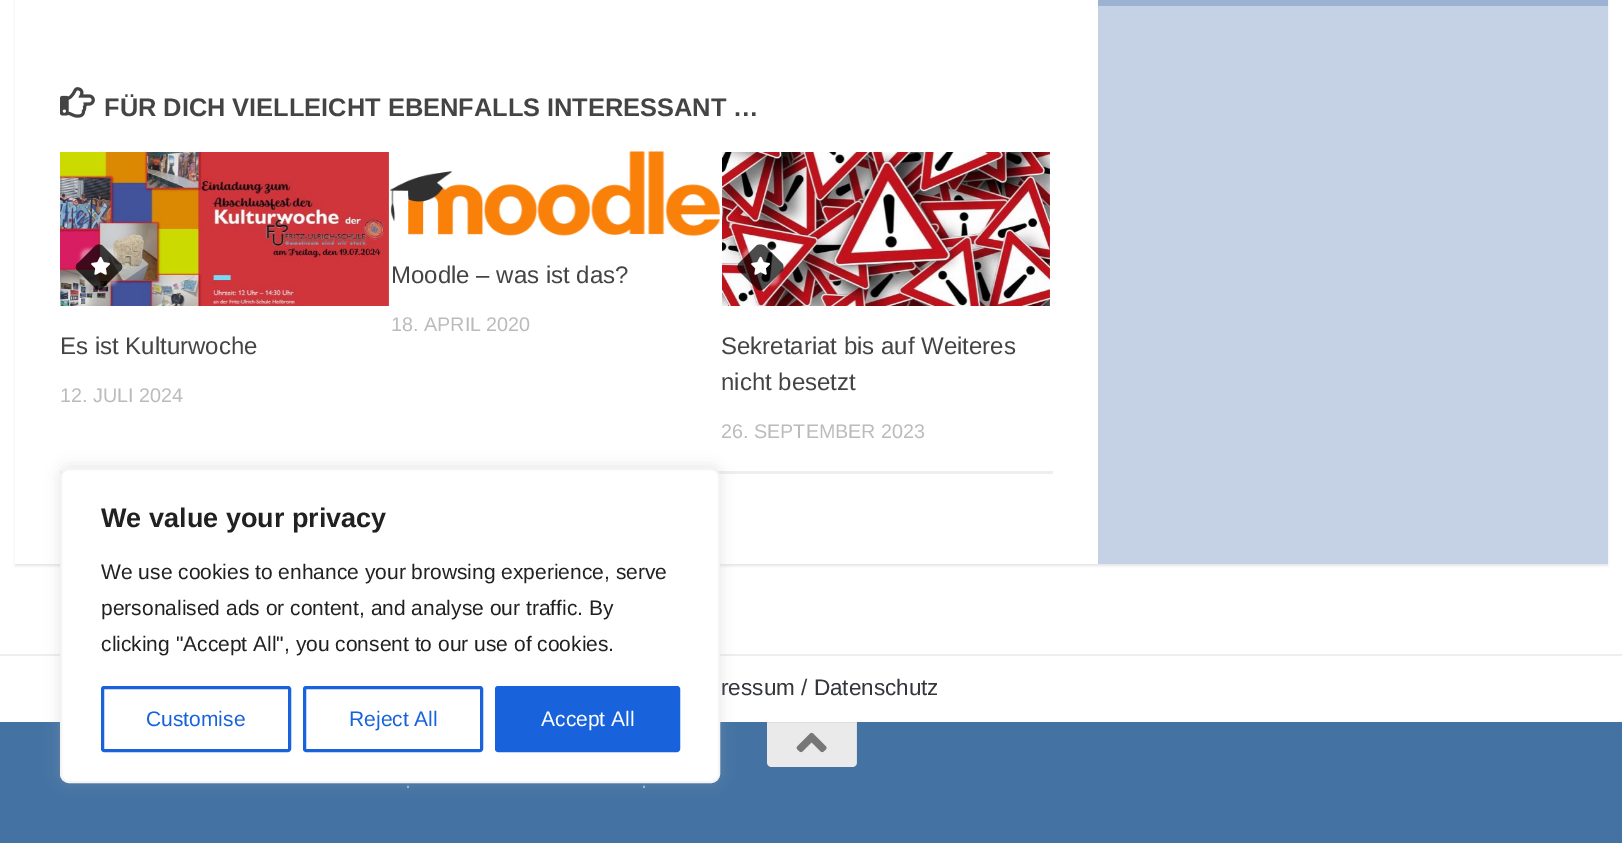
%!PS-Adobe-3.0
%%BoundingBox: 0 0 1622 843
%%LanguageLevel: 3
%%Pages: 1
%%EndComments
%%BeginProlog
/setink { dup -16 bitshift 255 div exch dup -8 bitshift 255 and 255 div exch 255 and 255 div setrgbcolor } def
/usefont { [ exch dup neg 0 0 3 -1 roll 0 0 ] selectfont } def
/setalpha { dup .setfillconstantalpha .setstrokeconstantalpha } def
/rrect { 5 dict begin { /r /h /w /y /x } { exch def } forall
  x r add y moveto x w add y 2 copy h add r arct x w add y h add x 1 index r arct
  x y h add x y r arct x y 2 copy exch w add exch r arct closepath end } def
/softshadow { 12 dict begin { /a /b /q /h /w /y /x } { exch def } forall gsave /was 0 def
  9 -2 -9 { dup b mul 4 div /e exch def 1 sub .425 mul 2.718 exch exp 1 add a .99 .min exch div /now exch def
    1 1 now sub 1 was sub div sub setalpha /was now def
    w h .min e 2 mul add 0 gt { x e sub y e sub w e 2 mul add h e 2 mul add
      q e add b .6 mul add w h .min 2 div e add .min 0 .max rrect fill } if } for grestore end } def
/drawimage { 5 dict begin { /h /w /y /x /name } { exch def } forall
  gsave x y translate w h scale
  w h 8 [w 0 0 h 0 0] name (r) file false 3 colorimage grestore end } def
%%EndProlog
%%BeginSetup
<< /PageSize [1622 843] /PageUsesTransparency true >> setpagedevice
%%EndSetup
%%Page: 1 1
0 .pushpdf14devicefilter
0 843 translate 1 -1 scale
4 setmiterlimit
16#FFFFFF setink
0 0 1622 843 rectfill
gsave
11 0 moveto 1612 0 lineto 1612 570 lineto 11 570 lineto closepath 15 -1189 moveto 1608 -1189 lineto 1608 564 lineto 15 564 lineto closepath eoclip newpath
16#000000 setink
15 -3 1593 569 0 1 0.1 softshadow
grestore
16#9BB2D2 setink
1098 0 510 6 rectfill
(img1.raw) 60 87 35 31 drawimage
/LiberationSans-Bold 25.4 usefont
16#444444 setink
104 116 moveto (FÜR DICH VIELLEICHT EBENFALLS INTERESSANT …) show
16#EEEEEE setink
60 471 993 3 rectfill
(img2.raw) 390 151 330 85 drawimage
/LiberationSans-Regular 24 usefont
16#444444 setink
391 283 moveto (Moodle – was ist das?) show
/LiberationSans-Regular 19.75 usefont
16#BBBBBB setink
391 331 moveto (18. APRIL 2020) show
(img3.raw) 60 152 329 154 drawimage
gsave
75 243 moveto 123 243 lineto 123 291 lineto 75 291 lineto closepath 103 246 moveto 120 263 lineto 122.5 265 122.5 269 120 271.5 curveto 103 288.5 lineto 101 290.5 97 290.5 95 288.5 curveto 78 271.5 lineto 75.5 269 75.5 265 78 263 curveto 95 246 lineto 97 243.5 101 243.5 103 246 curveto closepath eoclip newpath
16#FFFFFF setink
81 249 36 36 6 1.5 0.4 softshadow
grestore
0.7 setalpha
16#000000 setink
103 246 moveto 120 263 lineto 123 265 123 269 120 271 curveto 103 288 lineto 101 291 97 291 95 288 curveto 78 271 lineto 75 269 75 265 78 263 curveto 95 246 lineto 97 244 101 244 103 246 curveto closepath fill
1 setalpha
(img4.raw) 91 256 19 19 drawimage
/LiberationSans-Regular 24 usefont
16#444444 setink
60 354 moveto (Es ist Kulturwoche) show
/LiberationSans-Regular 19.75 usefont
16#BBBBBB setink
60 402 moveto (12. JULI 2024) show
(img5.raw) 722 152 328 154 drawimage
gsave
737 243 moveto 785 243 lineto 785 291 lineto 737 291 lineto closepath 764.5 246 moveto 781.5 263 lineto 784 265 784 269 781.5 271.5 curveto 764.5 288.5 lineto 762 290.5 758.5 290.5 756 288.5 curveto 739 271.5 lineto 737 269 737 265 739 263 curveto 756 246 lineto 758.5 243.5 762 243.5 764.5 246 curveto closepath eoclip newpath
16#FFFFFF setink
743 249 36 36 6 1.5 0.4 softshadow
grestore
0.7 setalpha
16#000000 setink
765 246 moveto 782 263 lineto 784 265 784 269 782 271 curveto 765 288 lineto 762 291 758 291 756 288 curveto 739 271 lineto 737 269 737 265 739 263 curveto 756 246 lineto 758 244 762 244 765 246 curveto closepath fill
1 setalpha
(img6.raw) 751 256 19 19 drawimage
/LiberationSans-Regular 24 usefont
16#444444 setink
721 354 moveto (Sekretariat bis auf Weiteres) show
721 390 moveto (nicht besetzt) show
/LiberationSans-Regular 19.75 usefont
16#BBBBBB setink
721 438 moveto (26. SEPTEMBER 2023) show
16#C5D2E5 setink
1098 6 510 558 rectfill
16#EEEEEE setink
0 654 1622 2 rectfill
/LiberationSans-Regular 22.5 usefont
16#33363B setink
721 695 moveto (ressum / Datenschutz) show
16#4473A3 setink
0 722 1622 121 rectfill
16#EAEAEA setink
767 722 moveto 857 722 lineto 857 762 lineto 857 765 855 767 852 767 curveto 772 767 lineto 769 767 767 765 767 762 curveto closepath fill
0.05 setalpha
16#000000 setink
767 722 moveto 767 723 lineto 856 723 lineto 856 765 lineto 857 764 857 763 857 762 curveto 857 722 lineto closepath fill
1 setalpha
(img7.raw) 796 732 31 21 drawimage
/LiberationSans-Regular 21 usefont
16#A2B9D1 setink
405 788 moveto (.) show
641 788 moveto (.) show
16#ACABAB setink
60 467 660 315 9 7.5 0.3 softshadow
16#FFFFFF setink
61 469 658 313 8 rrect gsave fill grestore
16#F4F4F4 setink
2 setlinewidth
stroke
/LiberationSans-Bold 27 usefont
16#212121 setink
101 527 moveto (We value your privacy) show
/LiberationSans-Regular 21 usefont
[
    [(We use cookies to enhance your browsing experience, serve) 101 579]
    [(personalised ads or content, and analyse our traffic. By) 101 615]
    [(clicking "Accept All", you consent to our use of cookies.) 101 651]
] { aload pop moveto show } forall
16#1863DC setink
3 setlinewidth
102.5 687.5 187 63 1.5 rrect stroke
146 726 moveto (Customise) show
304.5 687.5 177 63 1.5 rrect stroke
349 726 moveto (Reject All) show
496.5 687.5 182 63 1.5 rrect gsave fill grestore
stroke
16#FFFFFF setink
541 726 moveto (Accept All) show
.poppdf14devicefilter showpage
%%EOF
